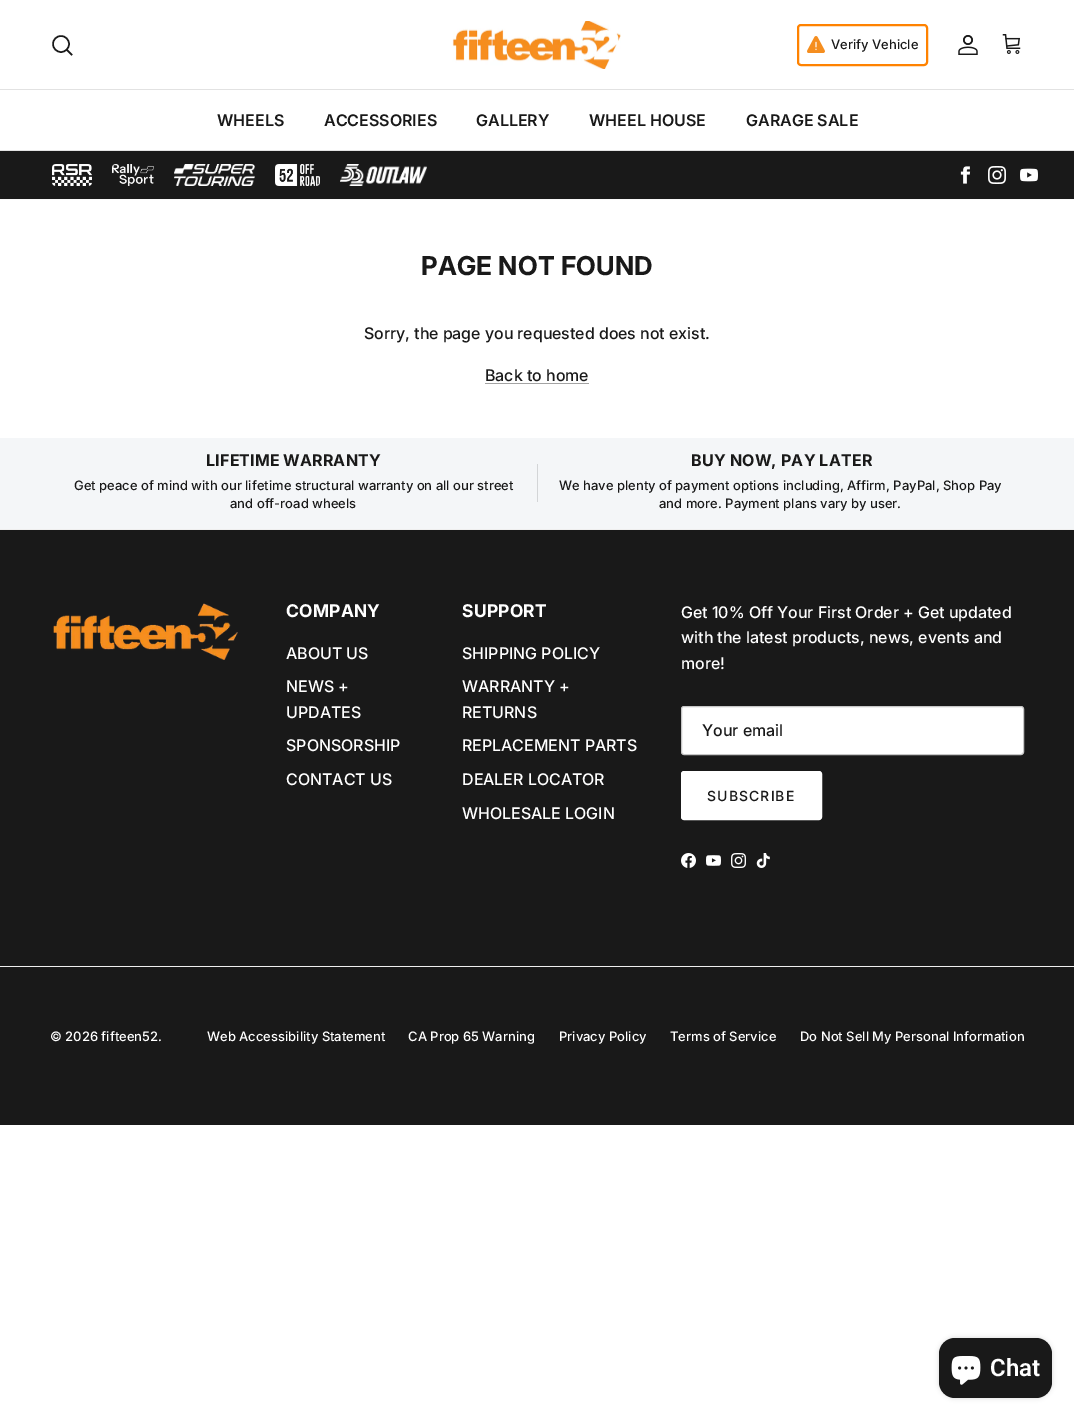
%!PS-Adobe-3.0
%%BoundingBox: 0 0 1074 1419
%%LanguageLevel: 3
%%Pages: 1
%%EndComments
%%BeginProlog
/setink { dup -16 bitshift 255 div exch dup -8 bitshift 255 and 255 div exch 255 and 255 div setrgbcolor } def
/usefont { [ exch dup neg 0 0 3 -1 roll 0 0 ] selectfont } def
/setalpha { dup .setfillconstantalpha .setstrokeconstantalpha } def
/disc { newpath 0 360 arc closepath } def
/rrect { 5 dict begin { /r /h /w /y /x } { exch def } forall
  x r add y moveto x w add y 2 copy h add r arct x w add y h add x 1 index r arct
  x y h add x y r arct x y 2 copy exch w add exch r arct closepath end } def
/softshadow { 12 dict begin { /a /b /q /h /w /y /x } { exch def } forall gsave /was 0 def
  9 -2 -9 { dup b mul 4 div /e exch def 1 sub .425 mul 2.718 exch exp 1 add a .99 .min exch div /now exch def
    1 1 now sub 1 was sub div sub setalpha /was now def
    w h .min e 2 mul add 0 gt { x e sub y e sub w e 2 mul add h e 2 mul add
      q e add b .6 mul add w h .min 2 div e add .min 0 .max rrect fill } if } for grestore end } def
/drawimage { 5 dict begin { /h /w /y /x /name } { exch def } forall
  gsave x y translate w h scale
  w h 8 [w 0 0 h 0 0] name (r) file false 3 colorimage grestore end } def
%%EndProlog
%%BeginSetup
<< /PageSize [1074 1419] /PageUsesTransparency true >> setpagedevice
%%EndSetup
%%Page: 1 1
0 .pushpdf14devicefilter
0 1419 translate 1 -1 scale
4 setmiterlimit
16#FFFFFF setink
0 0 1074 1419 rectfill
16#E2E2E2 setink
0 89 1074 1 rectfill
16#191919 setink
1.5 setlinewidth
61 44 8 disc stroke
2 setlinecap
67 50 moveto 71.5 54.5 lineto stroke
(img1.raw) 452 21 169 48 drawimage
16#FF8200 setink
2 setlinewidth
0 setlinecap
798 25 129 40 3 rrect stroke
(img2.raw) 807 36 18 17 drawimage
/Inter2-Medium 13 usefont
16#191919 setink
831 49 moveto (Verify Vehicle) show
(img3.raw) 958 35 20 20 drawimage
(img4.raw) 1002 34 19 20 drawimage
16#E2E2E2 setink
0 150 1074 1 rectfill
/Inter-SemiBold 16 usefont
16#191919 setink
[
    [(WHEELS) 217 126]
    [(ACCESSORIES) 324 126]
    [(GALLERY) 476 126]
    [(WHEEL HOUSE) 589 126]
    [(GARAGE SALE) 746 126]
] { aload pop moveto show } forall
0 151 1074 48 rectfill
(img5.raw) 52 164 40 22 drawimage
(img6.raw) 112 164 42 22 drawimage
(img7.raw) 174 164 81 22 drawimage
(img8.raw) 275 164 45 22 drawimage
(img9.raw) 340 164 87 22 drawimage
(img10.raw) 960 166 11 18 drawimage
(img11.raw) 988 166 18 18 drawimage
(img12.raw) 1020 168 18 14 drawimage
16#F8F8F8 setink
0 199 1074 1 rectfill
/Inter-Bold 26 usefont
16#191919 setink
421 275 moveto 0.25 0 (PAGE NOT FOUND) ashow
/Inter-Medium 16 usefont
364 339 moveto (Sorry, the page you requested does not exist.) show
485 381 moveto (Back to home) show
16#A3A3A3 setink
485 383 104 1 rectfill
16#F4F6F8 setink
0 438 1074 91 rectfill
/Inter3-Bold 16 usefont
16#191919 setink
206 466 moveto -1 0 32 0.2 0 (LIFETIME WARRANTY) awidthshow
/Inter2-Medium 13 usefont
74 490 moveto (Get peace of mind with our lifetime structural warranty on all our street) show
230 508 moveto (and off-road wheels) show
/Inter3-Bold 16 usefont
691 466 moveto 0.2 0 (BUY NOW, PAY LATER) ashow
16#D3D5D7 setink
537 464 1 38 rectfill
/Inter2-Medium 13 usefont
16#191919 setink
559 490 moveto (We have plenty of payment options including, Affirm, PayPal, Shop Pay) show
659 508 moveto (and more. Payment plans vary by user.) show
0 530 1074 595 rectfill
16#EEEEEE setink
0 529 1074 1 rectfill
(img13.raw) 53 603 185 57 drawimage
/Inter2-Bold 17.5 usefont
16#FFFFFF setink
286 617 moveto 0.25 0 (COMPANY) ashow
/Inter-Medium 16 usefont
[
    [(ABOUT US) 286 659]
    [(NEWS +) 286 692]
    [(UPDATES) 286 718]
    [(SPONSORSHIP) 286 751]
    [(CONTACT US) 286 785]
] { aload pop moveto show } forall
/Inter2-Bold 17.5 usefont
462 617 moveto 0.25 0 (SUPPORT) ashow
/Inter-Medium 16 usefont
[
    [(SHIPPING POLICY) 462 659]
    [(WARRANTY +) 462 692]
    [(RETURNS) 462 718]
    [(REPLACEMENT PARTS) 462 751]
    [(DEALER LOCATOR) 462 785]
    [(WHOLESALE LOGIN) 462 819]
    [(Get 10% Off Your First Order + Get updated) 681 618]
    [(with the latest products, news, events and) 681 643]
    [(more!) 681 669]
] { aload pop moveto show } forall
681.5 706.5 342 48 2.5 rrect gsave fill grestore
16#C6C6C6 setink
1 setlinewidth
stroke
16#191919 setink
702 736 moveto (Your email) show
16#FFFFFF setink
681.5 771.5 140 48 2.5 rrect gsave fill grestore
stroke
/Inter2-Medium 14 usefont
16#191919 setink
707 801 moveto 1.1 0 (SUBSCRIBE) ashow
(img14.raw) 681 853 15 15 drawimage
(img15.raw) 706 855 15 11 drawimage
(img16.raw) 731 853 15 15 drawimage
(img17.raw) 756 853 14 15 drawimage
16#EEEEEE setink
0 966 1074 1 rectfill
/Inter2-Medium 13 usefont
16#FFFFFF setink
[
    [(© 2026 fifteen52.) 50 1041]
    [(Web Accessibility Statement) 207 1041]
    [(CA Prop 65 Warning) 408 1041]
    [(Privacy Policy) 559 1041]
    [(Terms of Service) 670 1041]
    [(Do Not Sell My Personal Information) 800 1041]
] { aload pop moveto show } forall
16#000000 setink
939 1338 113 60 16 2.5 0.15 softshadow
16#191919 setink
939 1338 113 60 16 rrect fill
(img18.raw) 951 1356 30 29 drawimage
/Roboto-SemiBold 24 usefont
16#FFFFFF setink
990 1376 moveto (Chat) show
.poppdf14devicefilter showpage
%%EOF
